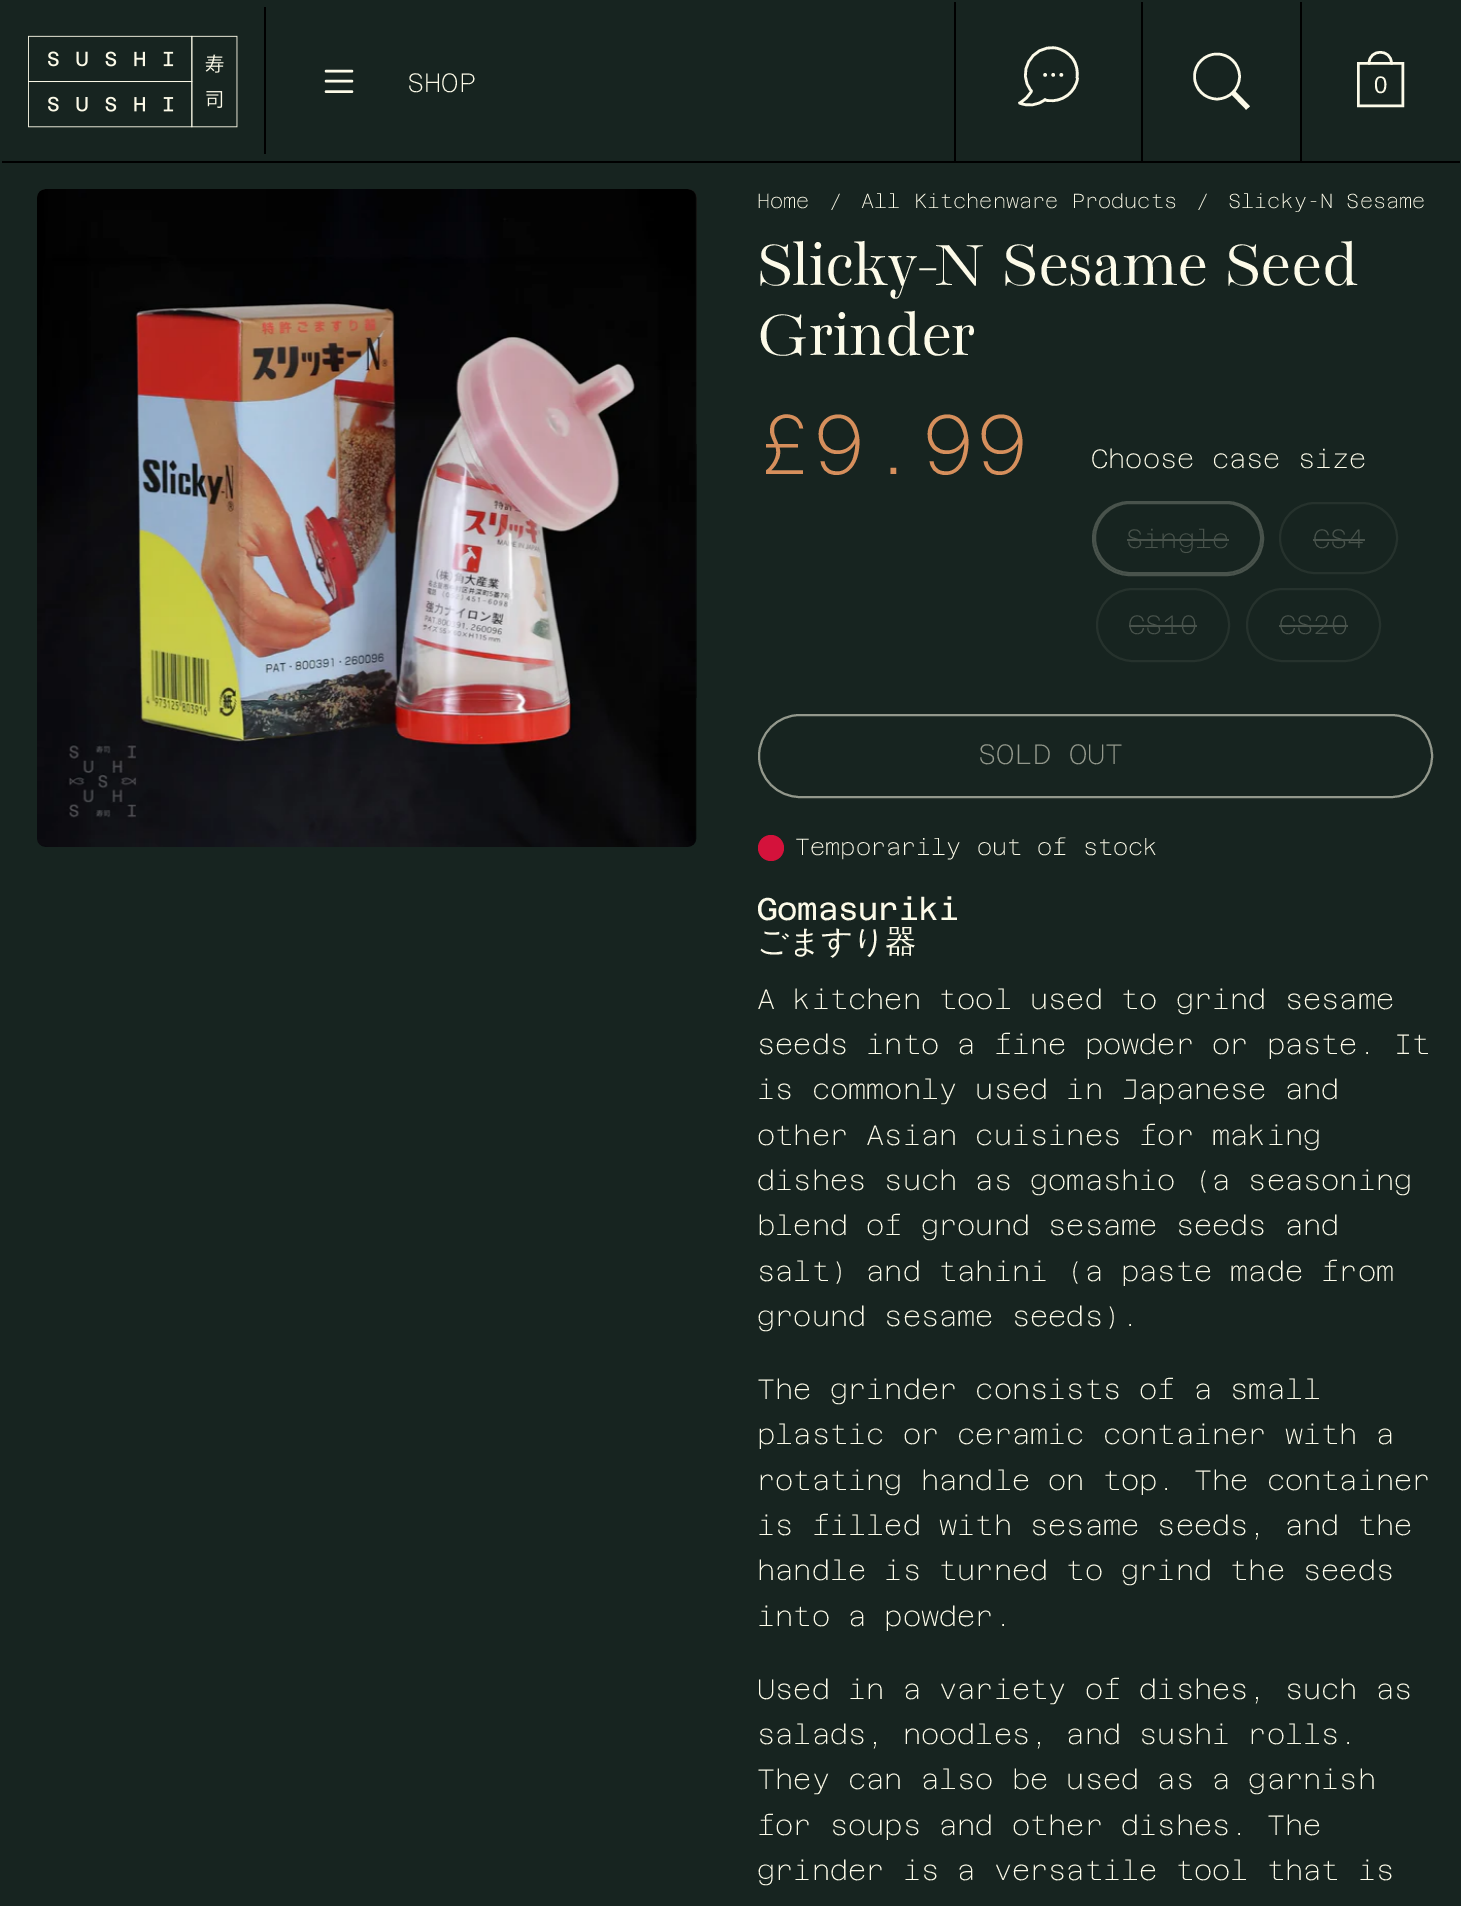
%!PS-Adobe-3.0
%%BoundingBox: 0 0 1461 1906
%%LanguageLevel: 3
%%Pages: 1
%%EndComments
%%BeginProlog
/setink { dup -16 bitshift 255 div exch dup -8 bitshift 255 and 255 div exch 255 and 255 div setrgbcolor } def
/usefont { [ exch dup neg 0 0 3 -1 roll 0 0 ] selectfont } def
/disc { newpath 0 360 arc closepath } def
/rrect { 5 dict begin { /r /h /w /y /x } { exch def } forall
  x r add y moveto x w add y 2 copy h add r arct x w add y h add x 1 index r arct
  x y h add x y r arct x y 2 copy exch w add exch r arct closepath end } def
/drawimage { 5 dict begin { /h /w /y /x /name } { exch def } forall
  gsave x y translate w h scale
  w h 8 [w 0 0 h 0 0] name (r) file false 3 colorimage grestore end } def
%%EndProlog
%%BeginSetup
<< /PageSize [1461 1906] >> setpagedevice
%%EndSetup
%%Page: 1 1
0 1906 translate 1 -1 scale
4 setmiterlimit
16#172420 setink
0 0 1461 1906 rectfill
16#000000 setink
2 161 1458 2 rectfill
(img1.raw) 28 35 210 93 drawimage
264 7 2 147 rectfill
16#FCFAE8 setink
2.4 setlinewidth
1 setlinecap
1 setlinejoin
326 71 moveto 352 71 lineto 326 81 moveto 352 81 lineto 326 91.5 moveto 352 91.5 lineto stroke
/AzeretMono-Thin 26.5 usefont
407 92 moveto (SHOP) show
16#000000 setink
954 2 2 159 rectfill
16#FCFAE8 setink
2.6 setlinewidth
1077.5 78.5 moveto 1075.5 92.5 1062 102.5 1048 100.5 curveto 1047 100.5 1046 100.5 1045 99.5 curveto 1038 105.5 1027.5 106.5 1019.5 103 curveto 1024.5 100.5 1029 96 1031.5 91 curveto 1016 73.5 1031.5 44.5 1055.5 48 curveto 1062 49 1068.5 53 1072.5 58.5 curveto 1076.5 64 1078 71 1077 77.5 curveto stroke
1045.1 74.9 1.8 disc fill
1053.2 74.9 1.8 disc fill
1061.3 74.9 1.8 disc fill
16#000000 setink
1141 2 2 159 rectfill
16#FCFAE8 setink
2.5 setlinewidth
0 setlinecap
0 setlinejoin
1217 76.5 22.5 disc stroke
5 setlinewidth
1233 92.5 moveto 1248 108 lineto stroke
16#000000 setink
1300 2 2 159 rectfill
16#FCFAE8 setink
2.5 setlinewidth
1 setlinecap
1 setlinejoin
1369 63.5 moveto 1369 48.5 1391.5 48.5 1391.5 63.5 curveto stroke
0 setlinecap
0 setlinejoin
1358.25 63.25 44.5 42.5 rectstroke
/LiberationSans-Regular 24 usefont
1374 93 moveto (0) show
gsave 37 189 660 658 9 rrect clip newpath
<< /ShadingType 2 /ColorSpace /DeviceRGB /Coords [367 847 367 189] /Extend [true true] /Function << /FunctionType 3 /Domain [0 1] /Functions [<< /FunctionType 2 /Domain [0 1] /C0 [0.09 0.141 0.125] /C1 [0.09 0.141 0.125] /N 1 >> << /FunctionType 2 /Domain [0 1] /C0 [0.09 0.141 0.125] /C1 [0.114 0.114 0.106] /N 1 >>] /Bounds [0.5] /Encode [0 1 0 1] >> >> shfill grestore
(img2.raw) 37 189 660 658 drawimage
/AzeretMono-Thin 20.25 usefont
[
    [(Home) 757 208]
    [(/) 829 208]
    [(All Kitchenware Products) 861 208]
    [(/) 1196 208]
    [(Slicky-N Sesame) 1228 208]
] { aload pop moveto show } forall
/BacasimeAntique-Regular 70 usefont
757 285 moveto -0.7 0 (Slicky-N Sesame Seed) ashow
757 355 moveto -0.7 0 (Grinder) ashow
/AzeretMono-Thin 84 usefont
16#D68F5C setink
757 474 moveto (£9.99) show
/AzeretMono-Thin 26.5 usefont
16#FCFAE8 setink
1091 468 moveto (Choose case size) show
16#49534C setink
2 setlinewidth
1093 502 170 73 36.5 rrect stroke
1095 503 166 70 35 rrect stroke
1126 548 moveto (Single) show
1127 539 102 2 rectfill
16#26322D setink
1280 503 117 70 35 rrect stroke
16#49534C setink
1313 548 moveto (CS4) show
1313 539 52 2 rectfill
16#26322D setink
1097 589 132 72 36 rrect stroke
16#49534C setink
1128 634 moveto (CS10) show
1129 625 68 2 rectfill
16#26322D setink
1247 589 133 72 36 rrect stroke
16#49534C setink
1279 634 moveto (CS20) show
1279 625 69 2 rectfill
16#93988C setink
759 715 673 82 41 rrect stroke
/AzeretMono-Thin 28 usefont
978 764 moveto (SOLD OUT) show
16#D4123B setink
771 848 13 disc fill
/AzeretMono-Thin 23.3 usefont
16#FCFAE8 setink
795 855 moveto (Temporarily out of stock) show
/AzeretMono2-Thin 31.5 usefont
757 920 moveto -0.25 0 (Gomasuriki) ashow
/WenQuanYiZenHei-Medium 31.5 usefont
757 952 moveto -0.25 0 (ごますり器) ashow
/AzeretMono-Thin 28 usefont
[
    [(A kitchen tool used to grind sesame) 757 1009]
    [(seeds into a fine powder or paste. It) 757 1054]
    [(is commonly used in Japanese and) 757 1099]
    [(other Asian cuisines for making) 757 1145]
    [(dishes such as gomashio \(a seasoning) 757 1190]
    [(blend of ground sesame seeds and) 757 1235]
    [(salt\) and tahini \(a paste made from) 757 1281]
    [(ground sesame seeds\).) 757 1326]
    [(The grinder consists of a small) 757 1399]
    [(plastic or ceramic container with a) 757 1444]
    [(rotating handle on top. The container) 757 1490]
    [(is filled with sesame seeds, and the) 757 1535]
    [(handle is turned to grind the seeds) 757 1580]
    [(into a powder.) 757 1626]
    [(Used in a variety of dishes, such as) 757 1699]
    [(salads, noodles, and sushi rolls.) 757 1744]
    [(They can also be used as a garnish) 757 1789]
    [(for soups and other dishes. The) 757 1835]
    [(grinder is a versatile tool that is) 757 1880]
] { aload pop moveto show } forall
showpage
%%EOF
